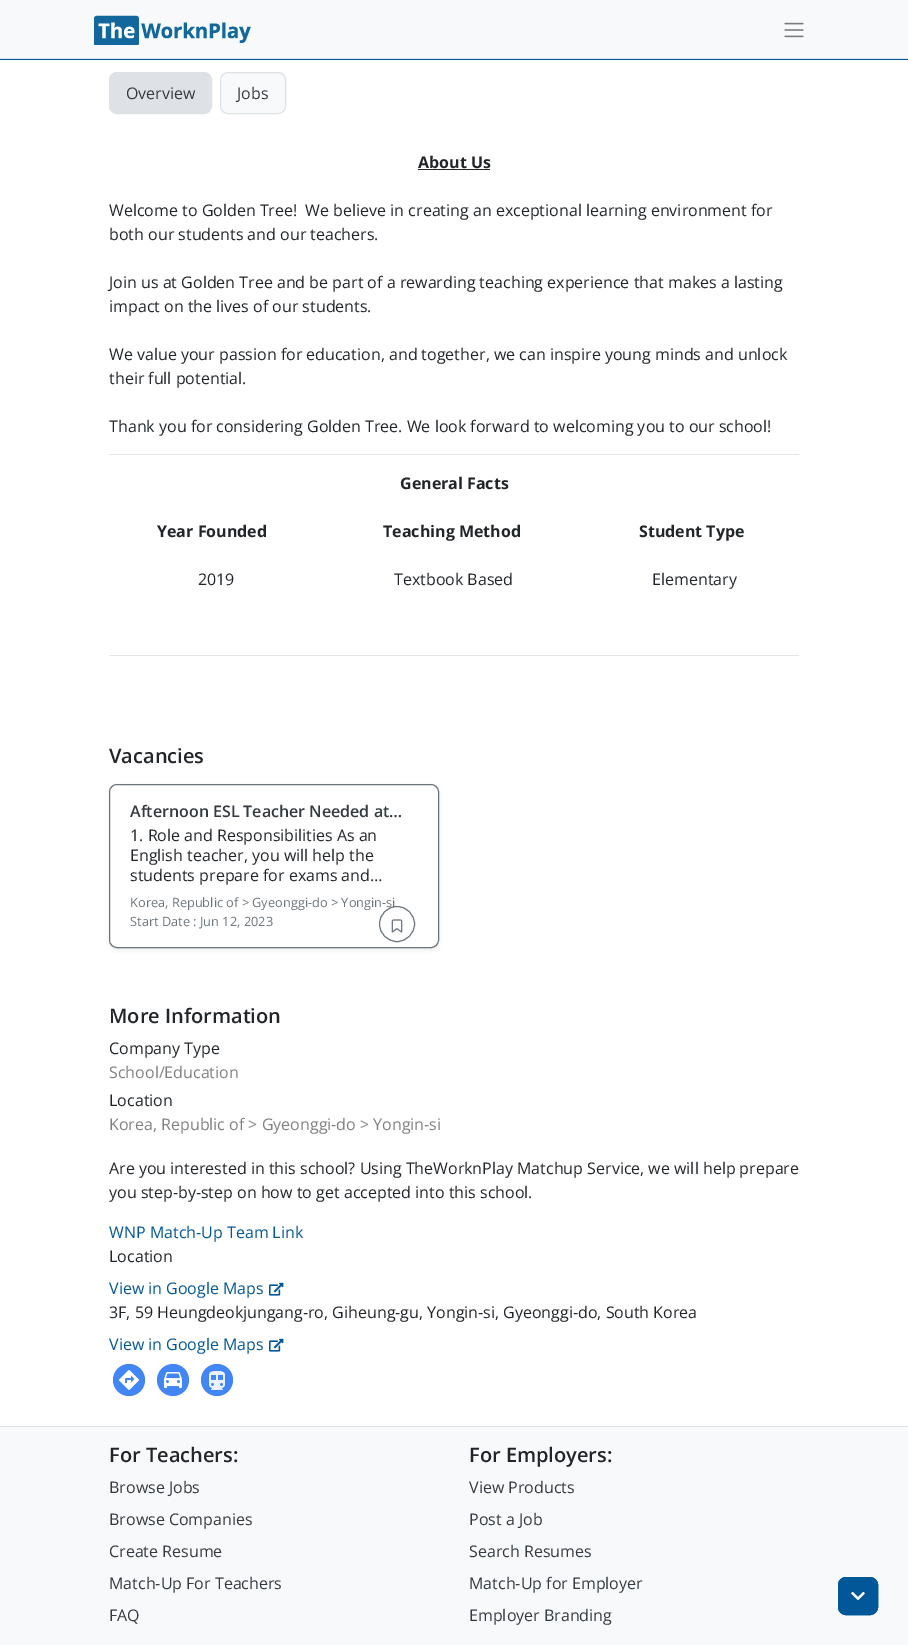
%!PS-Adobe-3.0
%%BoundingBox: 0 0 908 1645
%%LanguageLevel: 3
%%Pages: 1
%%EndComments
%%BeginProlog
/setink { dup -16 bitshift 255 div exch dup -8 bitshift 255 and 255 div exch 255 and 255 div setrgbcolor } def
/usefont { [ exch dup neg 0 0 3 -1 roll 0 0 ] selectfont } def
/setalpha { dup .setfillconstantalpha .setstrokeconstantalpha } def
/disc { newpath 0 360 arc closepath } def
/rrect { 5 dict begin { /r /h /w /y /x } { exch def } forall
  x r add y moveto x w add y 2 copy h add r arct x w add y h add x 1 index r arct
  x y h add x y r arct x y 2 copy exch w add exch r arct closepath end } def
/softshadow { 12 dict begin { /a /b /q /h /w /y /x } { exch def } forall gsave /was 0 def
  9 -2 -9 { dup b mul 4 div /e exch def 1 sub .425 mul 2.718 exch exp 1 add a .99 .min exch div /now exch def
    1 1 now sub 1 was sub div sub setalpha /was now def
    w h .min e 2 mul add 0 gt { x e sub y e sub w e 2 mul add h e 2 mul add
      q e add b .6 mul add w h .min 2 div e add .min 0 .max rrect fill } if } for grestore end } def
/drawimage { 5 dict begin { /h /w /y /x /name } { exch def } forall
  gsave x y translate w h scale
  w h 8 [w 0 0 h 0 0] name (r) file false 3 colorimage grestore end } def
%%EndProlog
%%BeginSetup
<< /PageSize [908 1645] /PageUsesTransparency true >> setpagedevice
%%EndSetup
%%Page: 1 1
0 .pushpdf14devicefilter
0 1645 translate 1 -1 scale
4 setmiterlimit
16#FFFFFF setink
0 0 908 1645 rectfill
16#F8F9FA setink
0 0 908 58 rectfill
16#DEE2E6 setink
0 58 908 1 rectfill
(img1.raw) 94 15 157 30 drawimage
(img2.raw) 784 22 20 16 drawimage
16#015798 setink
0 59 908 1 rectfill
16#DEE2E6 setink
109.5 72.5 102 41 7.5 rrect gsave fill grestore
stroke
/OpenSans-Regular 16 usefont
16#343A40 setink
126 99 moveto (Overview) show
16#F8F9FA setink
220.5 72.5 65 41 7.5 rrect gsave fill grestore
16#DEE2E6 setink
stroke
16#343A40 setink
237 99 moveto (Jobs) show
/OpenSans-Bold 16 usefont
16#212529 setink
418 168 moveto (About Us) show
418 169 72 1 rectfill
/OpenSans-Regular 16 usefont
[
    [(Welcome to Golden Tree!  We believe in creating an exceptional learning environment for) 109 216]
    [(both our students and our teachers.) 109 240]
    [(Join us at Golden Tree and be part of a rewarding teaching experience that makes a lasting) 109 288]
    [(impact on the lives of our students.) 109 312]
    [(We value your passion for education, and together, we can inspire young minds and unlock) 109 360]
    [(their full potential.) 109 384]
    [(Thank you for considering Golden Tree. We look forward to welcoming you to our school!) 109 432]
] { aload pop moveto show } forall
16#E6E6E6 setink
109 454 690 1 rectfill
/OpenSans-Bold 16 usefont
16#212529 setink
[
    [(General Facts) 400 489]
    [(Year Founded) 157 537]
    [(Teaching Method) 383 537]
    [(Student Type) 639 537]
] { aload pop moveto show } forall
/OpenSans-Regular 16 usefont
[
    [(2019) 198 585]
    [(Textbook Based) 394 585]
    [(Elementary) 652 585]
] { aload pop moveto show } forall
16#E6E6E6 setink
109 655 690 1 rectfill
/OpenSans-SemiBold 20 usefont
16#212529 setink
109 763 moveto (Vacancies) show
16#000000 setink
109 786 330 164 8 2 0.07 softshadow
16#FFFFFF setink
109.5 784.5 329 163 7.5 rrect gsave fill grestore
16#6C757D setink
stroke
/OpenSans-SemiBold 16 usefont
16#343A40 setink
130 817 moveto (Afternoon ESL Teacher Needed at…) show
/OpenSans-Regular 16 usefont
16#212529 setink
[
    [(1. Role and Responsibilities As an) 130 841]
    [(English teacher, you will help the) 130 861]
    [(students prepare for exams and…) 130 881]
] { aload pop moveto show } forall
16#6C757D setink
397 924 17.5 disc stroke
/OpenSans-Regular 12.8 usefont
130 907 moveto (Korea, Republic of > Gyeonggi-do > Yongin-si) show
130 926 moveto (Start Date : Jun 12, 2023) show
(img3.raw) 391 919 12 14 drawimage
/OpenSans-SemiBold 20 usefont
16#212529 setink
109 1023 moveto (More Information) show
/OpenSans-Regular 16 usefont
109 1054 moveto (Company Type) show
16#808080 setink
109 1078 moveto (School/Education) show
16#212529 setink
109 1106 moveto (Location) show
16#808080 setink
109 1130 moveto (Korea, Republic of > Gyeonggi-do > Yongin-si) show
16#212529 setink
109 1174 moveto (Are you interested in this school? Using TheWorknPlay Matchup Service, we will help prepare) show
109 1198 moveto (you step-by-step on how to get accepted into this school.) show
16#015798 setink
109 1238 moveto (WNP Match-Up Team Link) show
16#212529 setink
109 1262 moveto (Location) show
16#015798 setink
109 1294 moveto (View in Google Maps) show
(img4.raw) 269 1282 15 14 drawimage
16#212529 setink
109 1318 moveto (3F, 59 Heungdeokjungang-ro, Giheung-gu, Yongin-si, Gyeonggi-do, South Korea) show
16#015798 setink
109 1350 moveto (View in Google Maps) show
(img4.raw) 269 1338 15 14 drawimage
16#4285F4 setink
129 1380 16 disc fill
(img5.raw) 119 1370 20 20 drawimage
173 1380 16 disc fill
(img6.raw) 164 1372 18 17 drawimage
217 1380 16 disc fill
(img7.raw) 209 1368 16 22 drawimage
16#F8F9FA setink
0 1427 908 218 rectfill
16#DEE2E6 setink
0 1426 908 1 rectfill
/OpenSans-SemiBold 20 usefont
16#212529 setink
109 1462 moveto (For Teachers:) show
/OpenSans-Regular 16 usefont
16#343A40 setink
[
    [(Browse Jobs) 109 1493]
    [(Browse Companies) 109 1525]
    [(Create Resume) 109 1557]
    [(Match-Up For Teachers) 109 1589]
    [(FAQ) 109 1621]
] { aload pop moveto show } forall
/OpenSans-SemiBold 20 usefont
16#212529 setink
469 1462 moveto (For Employers:) show
/OpenSans-Regular 16 usefont
16#343A40 setink
[
    [(View Products) 469 1493]
    [(Post a Job) 469 1525]
    [(Search Resumes) 469 1557]
    [(Match-Up for Employer) 469 1589]
    [(Employer Branding) 469 1621]
] { aload pop moveto show } forall
16#015798 setink
838.5 1577.5 39 37 7.5 rrect stroke
838.5 1577.5 39 37 7.5 rrect gsave fill grestore
stroke
(img8.raw) 851 1591 14 10 drawimage
.poppdf14devicefilter showpage
%%EOF
